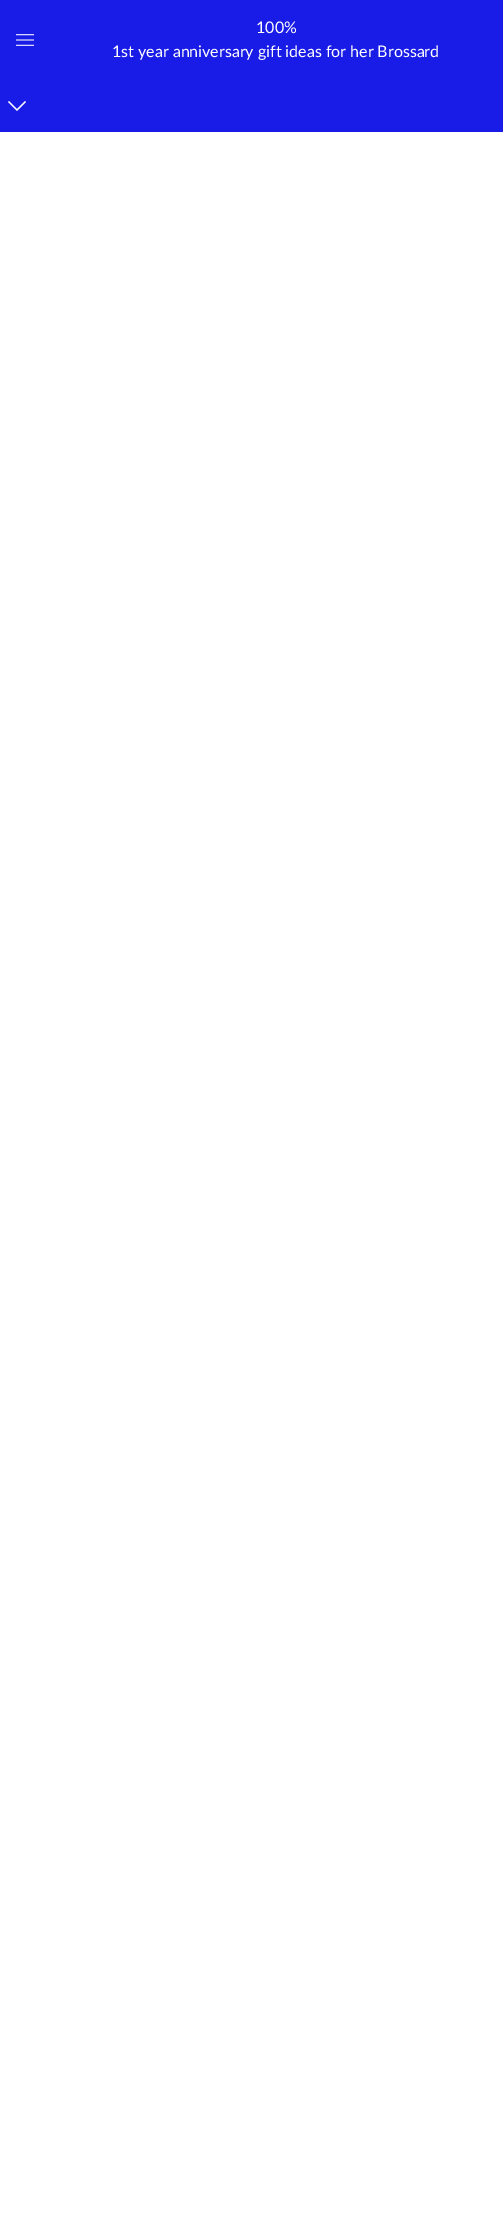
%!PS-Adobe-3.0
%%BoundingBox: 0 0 503 2227
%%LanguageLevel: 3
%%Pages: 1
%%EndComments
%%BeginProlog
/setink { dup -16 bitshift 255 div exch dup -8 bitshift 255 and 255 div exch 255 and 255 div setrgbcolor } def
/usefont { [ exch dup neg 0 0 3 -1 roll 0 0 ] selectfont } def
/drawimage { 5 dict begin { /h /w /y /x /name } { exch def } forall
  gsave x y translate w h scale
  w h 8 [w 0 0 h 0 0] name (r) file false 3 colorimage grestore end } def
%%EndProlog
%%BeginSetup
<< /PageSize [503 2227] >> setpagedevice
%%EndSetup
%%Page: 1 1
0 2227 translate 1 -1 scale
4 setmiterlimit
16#FFFFFF setink
0 0 503 2227 rectfill
16#191CE6 setink
0 0 503 132 rectfill
(img1.raw) 16 34 18 12 drawimage
/Lato-Regular 16 usefont
16#FFFFFF setink
256 33 moveto (100%) show
112 57 moveto (1st year anniversary gift ideas for her Brossard) show
8 102 moveto 9 101 lineto 17 109 lineto 25 101 lineto 26 102 lineto 17 111 lineto closepath fill
showpage
%%EOF
